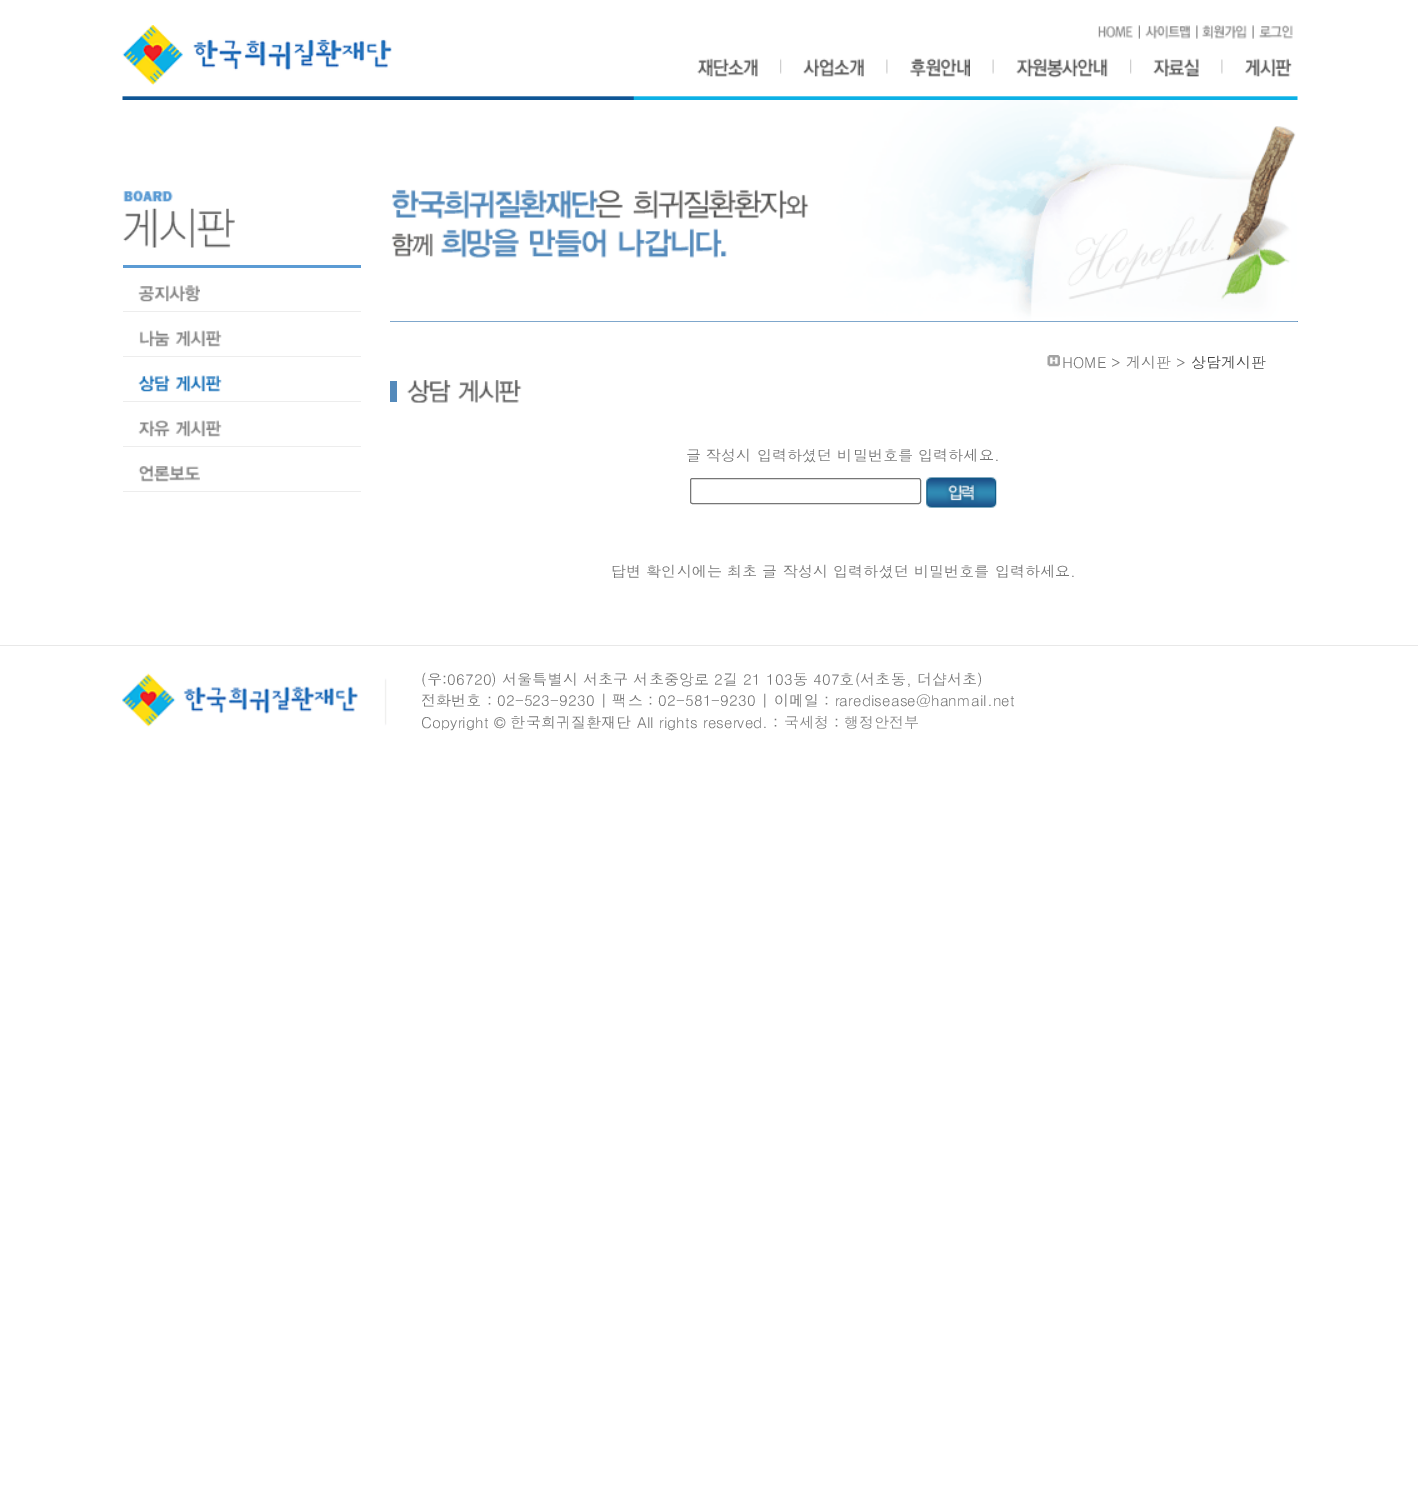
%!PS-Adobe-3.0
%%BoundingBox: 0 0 1418 1503
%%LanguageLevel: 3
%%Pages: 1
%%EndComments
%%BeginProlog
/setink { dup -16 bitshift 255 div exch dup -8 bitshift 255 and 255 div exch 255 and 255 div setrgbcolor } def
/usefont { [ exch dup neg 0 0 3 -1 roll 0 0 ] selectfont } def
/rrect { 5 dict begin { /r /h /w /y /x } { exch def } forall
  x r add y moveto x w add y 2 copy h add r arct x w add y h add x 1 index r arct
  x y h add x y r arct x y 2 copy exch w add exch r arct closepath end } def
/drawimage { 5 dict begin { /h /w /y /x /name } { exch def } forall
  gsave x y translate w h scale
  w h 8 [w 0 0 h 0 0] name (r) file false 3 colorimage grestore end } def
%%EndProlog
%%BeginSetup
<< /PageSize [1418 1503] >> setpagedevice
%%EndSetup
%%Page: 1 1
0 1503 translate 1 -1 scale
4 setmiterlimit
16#FFFFFF setink
0 0 1418 1503 rectfill
(img1.raw) 122 96 1176 4 drawimage
(img2.raw) 122 25 270 60 drawimage
(img3.raw) 1138 25 2 14 drawimage
(img4.raw) 1098 26 35 12 drawimage
(img5.raw) 1196 25 2 14 drawimage
(img6.raw) 1145 25 45 14 drawimage
(img7.raw) 1252 25 2 14 drawimage
(img8.raw) 1202 25 45 14 drawimage
(img9.raw) 1258 25 35 14 drawimage
(img10.raw) 780 58 2 16 drawimage
(img11.raw) 697 58 61 19 drawimage
(img12.raw) 886 59 2 15 drawimage
(img13.raw) 803 58 61 19 drawimage
(img14.raw) 992 59 2 15 drawimage
(img15.raw) 910 58 60 19 drawimage
(img10.raw) 1130 58 2 16 drawimage
(img16.raw) 1016 58 92 20 drawimage
(img12.raw) 1221 59 2 15 drawimage
(img17.raw) 1153 58 46 19 drawimage
(img18.raw) 1245 58 47 19 drawimage
16#5B9BD4 setink
123 265 238 3 rectfill
(img19.raw) 123 190 112 58 drawimage
16#EDEDED setink
123 311 238 1 rectfill
(img20.raw) 138 285 62 17 drawimage
123 356 238 1 rectfill
(img21.raw) 139 330 83 17 drawimage
123 401 238 1 rectfill
(img22.raw) 138 375 84 17 drawimage
123 446 238 1 rectfill
(img23.raw) 138 420 84 17 drawimage
123 491 238 1 rectfill
(img24.raw) 138 465 62 17 drawimage
16#548ABB setink
390 321 908 1 rectfill
(img25.raw) 390 100 908 222 drawimage
(img26.raw) 1047 355 13 12 drawimage
/Dotum-Regular 15 usefont
16#767676 setink
1062 368 moveto 0.12 0 (HOME >) ashow
1126 368 moveto 0.12 0 (게시판 >) ashow
16#444444 setink
1191 368 moveto 0.12 0 (상담게시판) ashow
16#548ABB setink
390 381 7 21 rectfill
(img27.raw) 407 380 115 23 drawimage
16#767676 setink
686 461 moveto 0.12 0 (글 작성시 입력하셨던 비밀번호를 입력하세요.) ashow
690.5 478.5 230 25 2 rrect stroke
(img28.raw) 926 477 71 31 drawimage
611 577 moveto 0.12 0 (답변 확인시에는 최초 글 작성시 입력하셨던 비밀번호를 입력하세요.) ashow
16#E8E8E8 setink
0 645 1418 1 rectfill
(img29.raw) 122 673 265 54 drawimage
16#767676 setink
421 685 moveto 0.12 0 (\(우:06720\) 서울특별시 서초구 서초중앙로 2길 21 103동 407호\(서초동, 더샵서초\)) ashow
421 706 moveto 0.12 0 (전화번호 : 02-523-9230 | 팩스 : 02-581-9230 | 이메일 : raredisease@hanmail.net) ashow
421 728 moveto 0.12 0 (Copyright © 한국희귀질환재단 All rights reserved. :) ashow
16#878787 setink
784 728 moveto 0.12 0 (국세청) ashow
16#767676 setink
834 728 moveto 0.12 0 (:) ashow
16#878787 setink
844 728 moveto 0.12 0 (행정안전부) ashow
showpage
%%EOF
